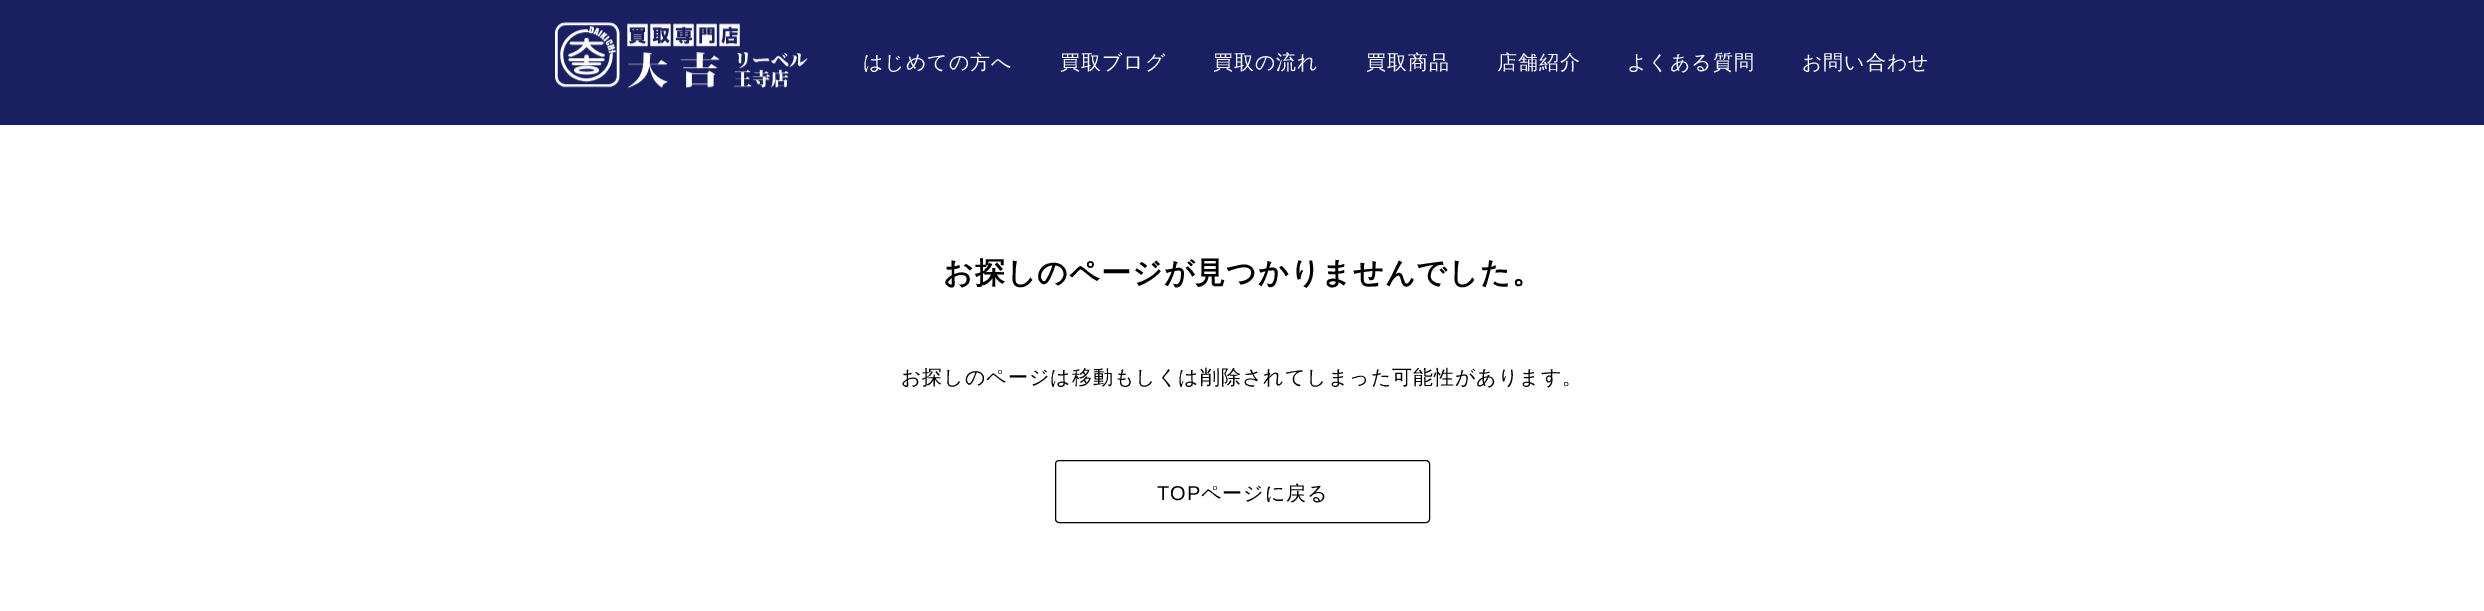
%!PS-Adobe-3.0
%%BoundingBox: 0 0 2484 611
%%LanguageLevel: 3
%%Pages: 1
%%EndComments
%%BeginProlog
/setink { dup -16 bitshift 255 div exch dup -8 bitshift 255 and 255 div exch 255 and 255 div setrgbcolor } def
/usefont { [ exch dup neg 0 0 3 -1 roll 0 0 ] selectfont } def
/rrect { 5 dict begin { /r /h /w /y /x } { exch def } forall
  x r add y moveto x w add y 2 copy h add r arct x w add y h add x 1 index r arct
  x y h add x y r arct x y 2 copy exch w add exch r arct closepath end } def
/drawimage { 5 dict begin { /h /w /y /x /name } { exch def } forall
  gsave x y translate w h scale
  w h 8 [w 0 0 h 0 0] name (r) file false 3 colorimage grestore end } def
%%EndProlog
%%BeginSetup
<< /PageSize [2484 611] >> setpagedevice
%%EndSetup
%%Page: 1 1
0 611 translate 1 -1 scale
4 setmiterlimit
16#FFFFFF setink
0 0 2484 611 rectfill
16#191F61 setink
0 0 2484 125 rectfill
(img1.raw) 555 22 253 67 drawimage
/WenQuanYiZenHei-Medium 20 usefont
16#FFFFFF setink
863 69 moveto 1 0 (はじめての方へ) ashow
1060 69 moveto 1 0 (買取ブログ) ashow
1213 69 moveto 1 0 (買取の流れ) ashow
1366 69 moveto 1 0 (買取商品) ashow
1497 69 moveto 1 0 (店舗紹介) ashow
1627 69 moveto 1 0 (よくある質問) ashow
1802 69 moveto 1 0 (お問い合わせ) ashow
/WenQuanYiZenHei-Bold 30 usefont
16#000000 setink
943 283 moveto 1 0 (お探しのページが見つかりませんでした。) ashow
/WenQuanYiZenHei-Medium 20 usefont
901 384 moveto 1 0 (お探しのページは移動もしくは削除されてしまった可能性があります。) ashow
1055.5 460.5 374 62 3.5 rrect stroke
/LiberationSans-Regular 20 usefont
1157 500 moveto 1 0 (TOP) ashow
/WenQuanYiZenHei-Medium 20 usefont
1201 500 moveto 1 0 (ページに戻る) ashow
showpage
%%EOF
